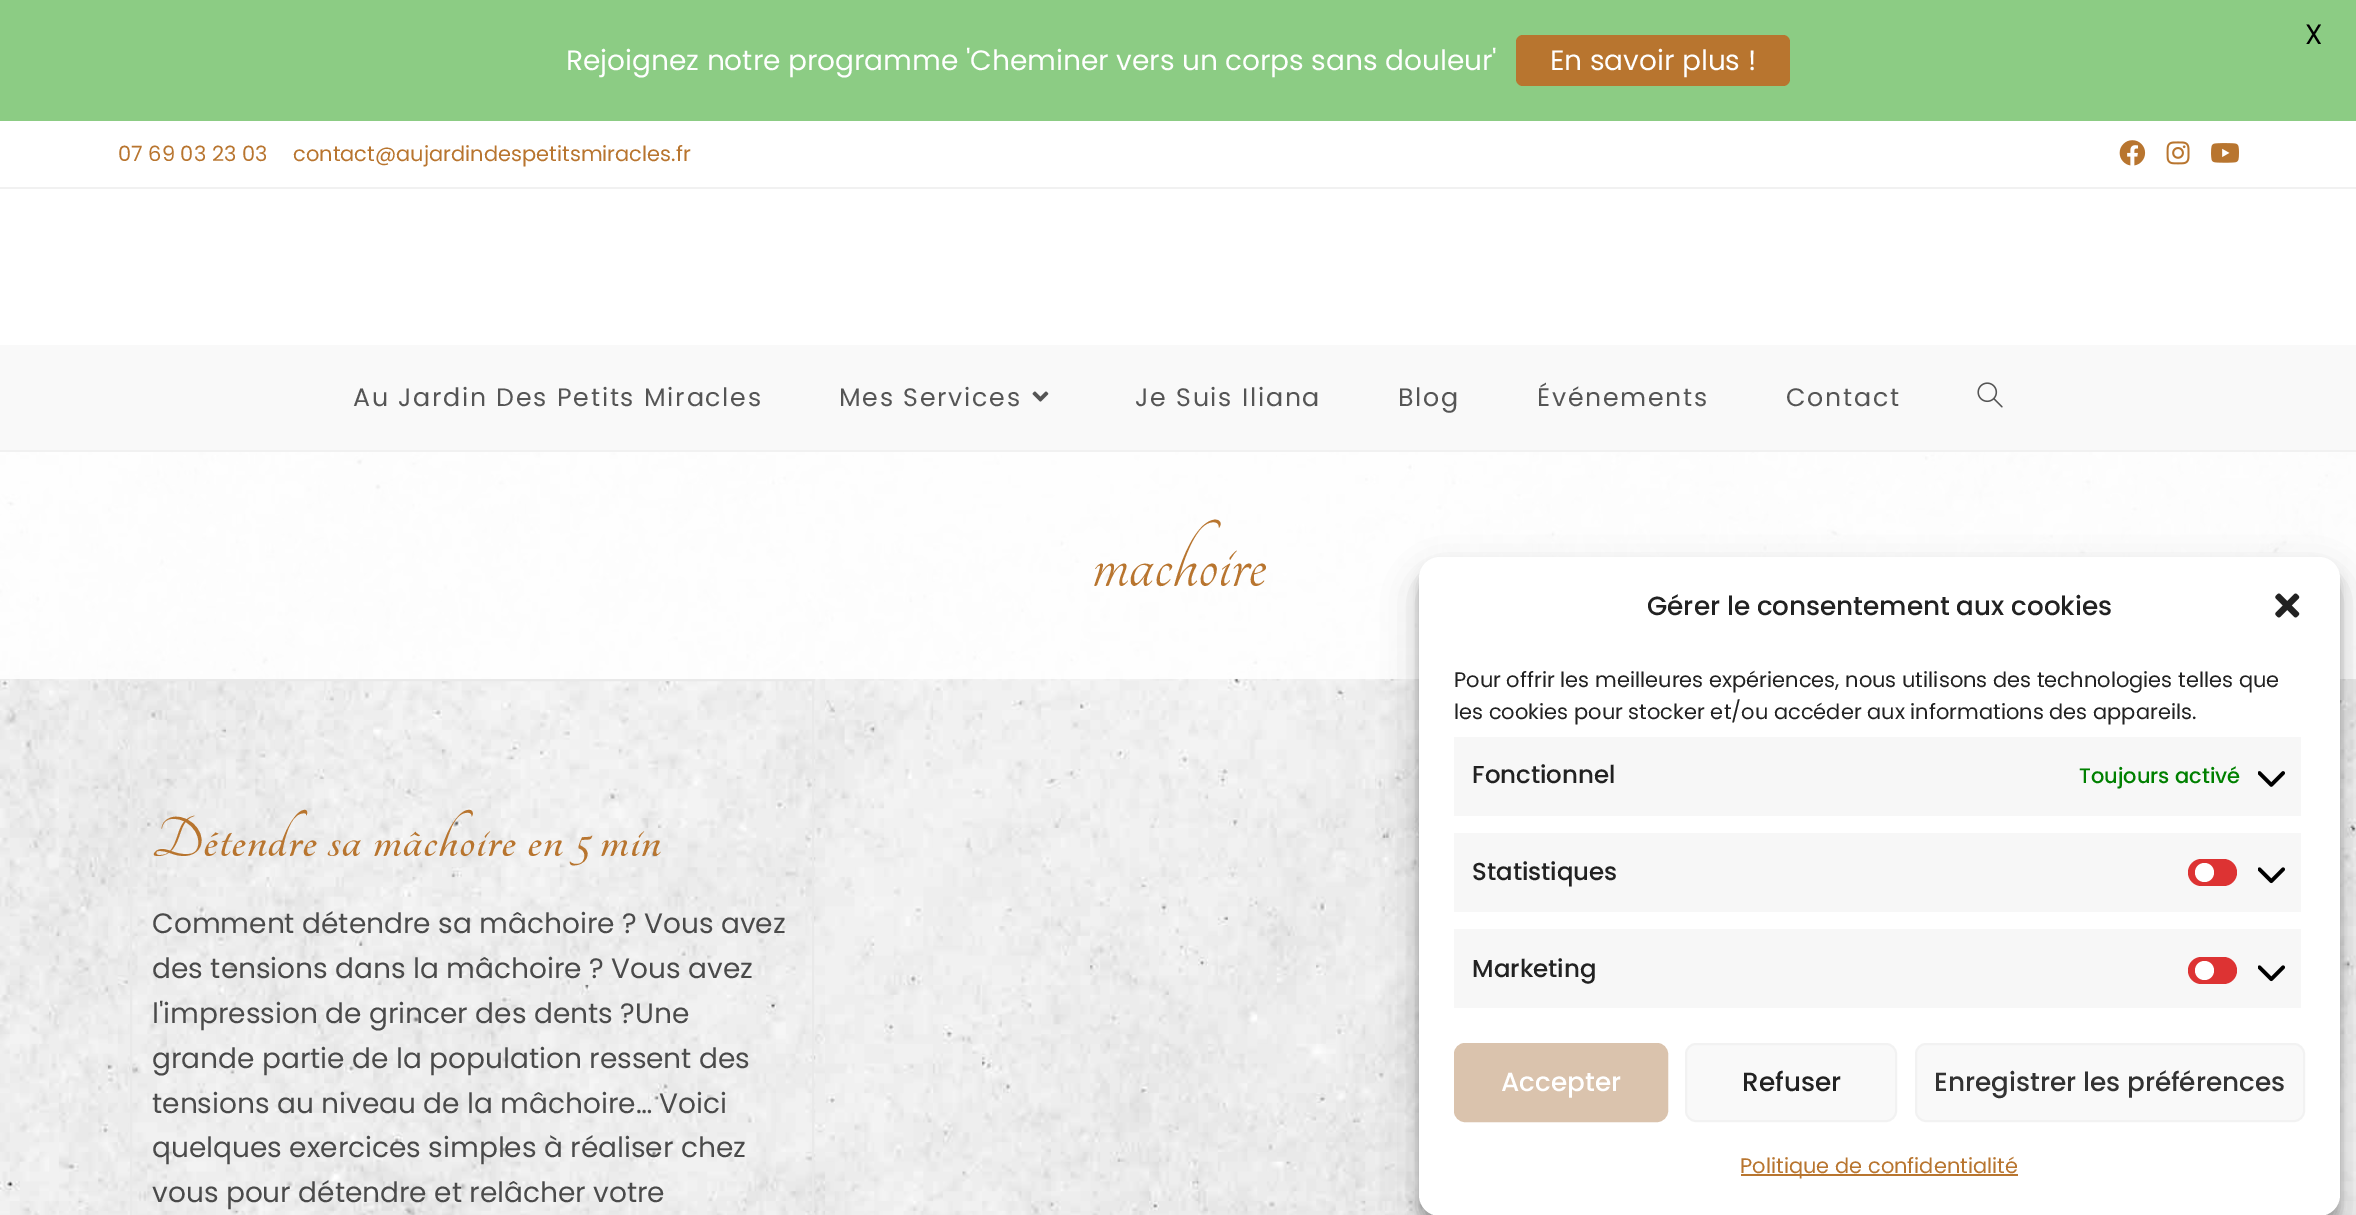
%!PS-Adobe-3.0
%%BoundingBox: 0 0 2356 1215
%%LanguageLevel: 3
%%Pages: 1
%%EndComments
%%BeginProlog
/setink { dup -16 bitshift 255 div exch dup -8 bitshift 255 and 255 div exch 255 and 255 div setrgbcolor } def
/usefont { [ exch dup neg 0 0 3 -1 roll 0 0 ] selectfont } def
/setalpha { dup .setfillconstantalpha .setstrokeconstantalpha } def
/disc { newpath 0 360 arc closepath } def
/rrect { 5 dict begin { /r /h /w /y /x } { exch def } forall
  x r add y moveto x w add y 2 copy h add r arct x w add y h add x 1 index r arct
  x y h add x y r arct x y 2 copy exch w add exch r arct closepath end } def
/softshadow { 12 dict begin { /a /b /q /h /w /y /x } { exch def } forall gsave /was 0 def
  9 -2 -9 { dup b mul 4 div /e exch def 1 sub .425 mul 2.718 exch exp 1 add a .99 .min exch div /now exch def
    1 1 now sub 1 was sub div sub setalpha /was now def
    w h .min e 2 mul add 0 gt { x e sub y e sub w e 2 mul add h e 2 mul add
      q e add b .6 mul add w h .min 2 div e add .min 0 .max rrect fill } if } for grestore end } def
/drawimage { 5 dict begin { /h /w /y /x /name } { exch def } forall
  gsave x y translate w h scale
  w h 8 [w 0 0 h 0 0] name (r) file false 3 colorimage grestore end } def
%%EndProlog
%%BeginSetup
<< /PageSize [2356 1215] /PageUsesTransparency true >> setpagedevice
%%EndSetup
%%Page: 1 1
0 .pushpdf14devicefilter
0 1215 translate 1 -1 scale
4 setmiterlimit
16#FFFFFF setink
0 0 2356 1215 rectfill
(img1.raw) 0 452 2356 763 drawimage
16#8CCC84 setink
0 0 2356 121 rectfill
/Poppins-Regular 28 usefont
16#000000 setink
2305 44 moveto (X) show
16#FFFFFF setink
566 70 moveto (Rejoignez notre programme 'Cheminer vers un corps sans douleur') show
16#B8752F setink
1516 35 274 51 7 rrect fill
16#FFFFFF setink
1550 70 moveto (En savoir plus !) show
16#F1F1F1 setink
0 187 2356 2 rectfill
/Poppins-Regular 21 usefont
16#B8752F setink
118 161 moveto (07 69 03 23 03) show
293 161 moveto (contact@aujardindespetitsmiracles.fr) show
(img2.raw) 2119 140 27 26 drawimage
(img3.raw) 2166 141 24 24 drawimage
(img4.raw) 2211 143 28 20 drawimage
16#F1F1F1 setink
0 450 2356 2 rectfill
16#F9F9F9 setink
0 345 2356 105 rectfill
/Poppins-Regular 25.25 usefont
16#555555 setink
353 406 moveto 1.75 0 (Au Jardin Des Petits Miracles) ashow
839 406 moveto 1.75 0 (Mes Services) ashow
(img5.raw) 1032 391 17 11 drawimage
1135 406 moveto 1.75 0 (Je Suis Iliana) ashow
1398 406 moveto 1.75 0 (Blog) ashow
1537 406 moveto 1.75 0 (Événements) ashow
1786 406 moveto 1.75 0 (Contact) ashow
(img6.raw) 1977 382 26 26 drawimage
0.9 setalpha
16#FFFFFF setink
0 452 2356 227 rectfill
/Tangerine-Regular 88 usefont
1 setalpha
16#B8752F setink
1092 586 moveto (machoire) show
16#E9E9E9 setink
2 setlinewidth
131 680 682 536 rectstroke
/Tangerine-Bold 61.25 usefont
16#B8752F setink
152 856 moveto 1.05 0 (Détendre sa mâchoire en 5 min) ashow
/Poppins-Regular 28 usefont
16#4A4A4A setink
[
    [(Comment détendre sa mâchoire ? Vous avez) 152 933]
    [(des tensions dans la mâchoire ? Vous avez) 152 978]
    [(l'impression de grincer des dents ?Une) 152 1023]
    [(grande partie de la population ressent des) 152 1068]
    [(tensions au niveau de la mâchoire… Voici) 152 1113]
    [(quelques exercices simples à réaliser chez) 152 1157]
    [(vous pour détendre et relâcher votre) 152 1202]
] { aload pop moveto show } forall
16#000000 setink
1419 567 921 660 21 5 0.23 softshadow
1419 574 921 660 21 17.5 0.19 softshadow
16#FFFFFF setink
1419 557 921 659 21 rrect fill
/Poppins-Medium 26.25 usefont
16#222222 setink
1647 615 moveto (Gérer le consentement aux cookies) show
(img7.raw) 2275 593 25 25 drawimage
/Poppins-Regular 21 usefont
1454 687 moveto (Pour offrir les meilleures expériences, nous utilisons des technologies telles que) show
1454 719 moveto (les cookies pour stocker et/ou accéder aux informations des appareils.) show
16#F7F7F7 setink
1454 737 847 79 rectfill
/Poppins-Medium 24.5 usefont
16#222222 setink
1472 783 moveto (Fonctionnel) show
/Poppins-Medium 21 usefont
16#008000 setink
2079 783 moveto (Toujours activé) show
(img8.raw) 2258 771 27 16 drawimage
16#F7F7F7 setink
1454 833 847 79 rectfill
/Poppins-Medium 24.5 usefont
16#222222 setink
1472 880 moveto (Statistiques) show
16#DD3333 setink
2188 859 49 27 13.5 rrect fill
16#FFFFFF setink
2204.5 872.5 9.5 disc fill
(img9.raw) 2258 867 27 17 drawimage
16#F7F7F7 setink
1454 929 847 79 rectfill
16#222222 setink
1472 977 moveto (Marketing) show
16#DD3333 setink
2188 957 49 27 13.5 rrect fill
16#FFFFFF setink
2204.5 970.5 9.5 disc fill
(img9.raw) 2258 965 27 17 drawimage
16#DAC3AD setink
1455 1044 212 77 10 rrect gsave fill grestore
stroke
/Poppins-Medium 26.25 usefont
16#FFFFFF setink
1501 1091 moveto (Accepter) show
16#F9F9F9 setink
1686 1044 210 77 10 rrect gsave fill grestore
16#F2F2F2 setink
stroke
16#222222 setink
1742 1091 moveto (Refuser) show
16#F9F9F9 setink
1916 1044 388 77 10 rrect gsave fill grestore
16#F2F2F2 setink
stroke
16#333333 setink
1934 1091 moveto (Enregistrer les préférences) show
16#B8752F setink
1741 1174 277 2 rectfill
/Poppins-Regular 21 usefont
1740 1173 moveto (Politique de confidentialité) show
.poppdf14devicefilter showpage
%%EOF
